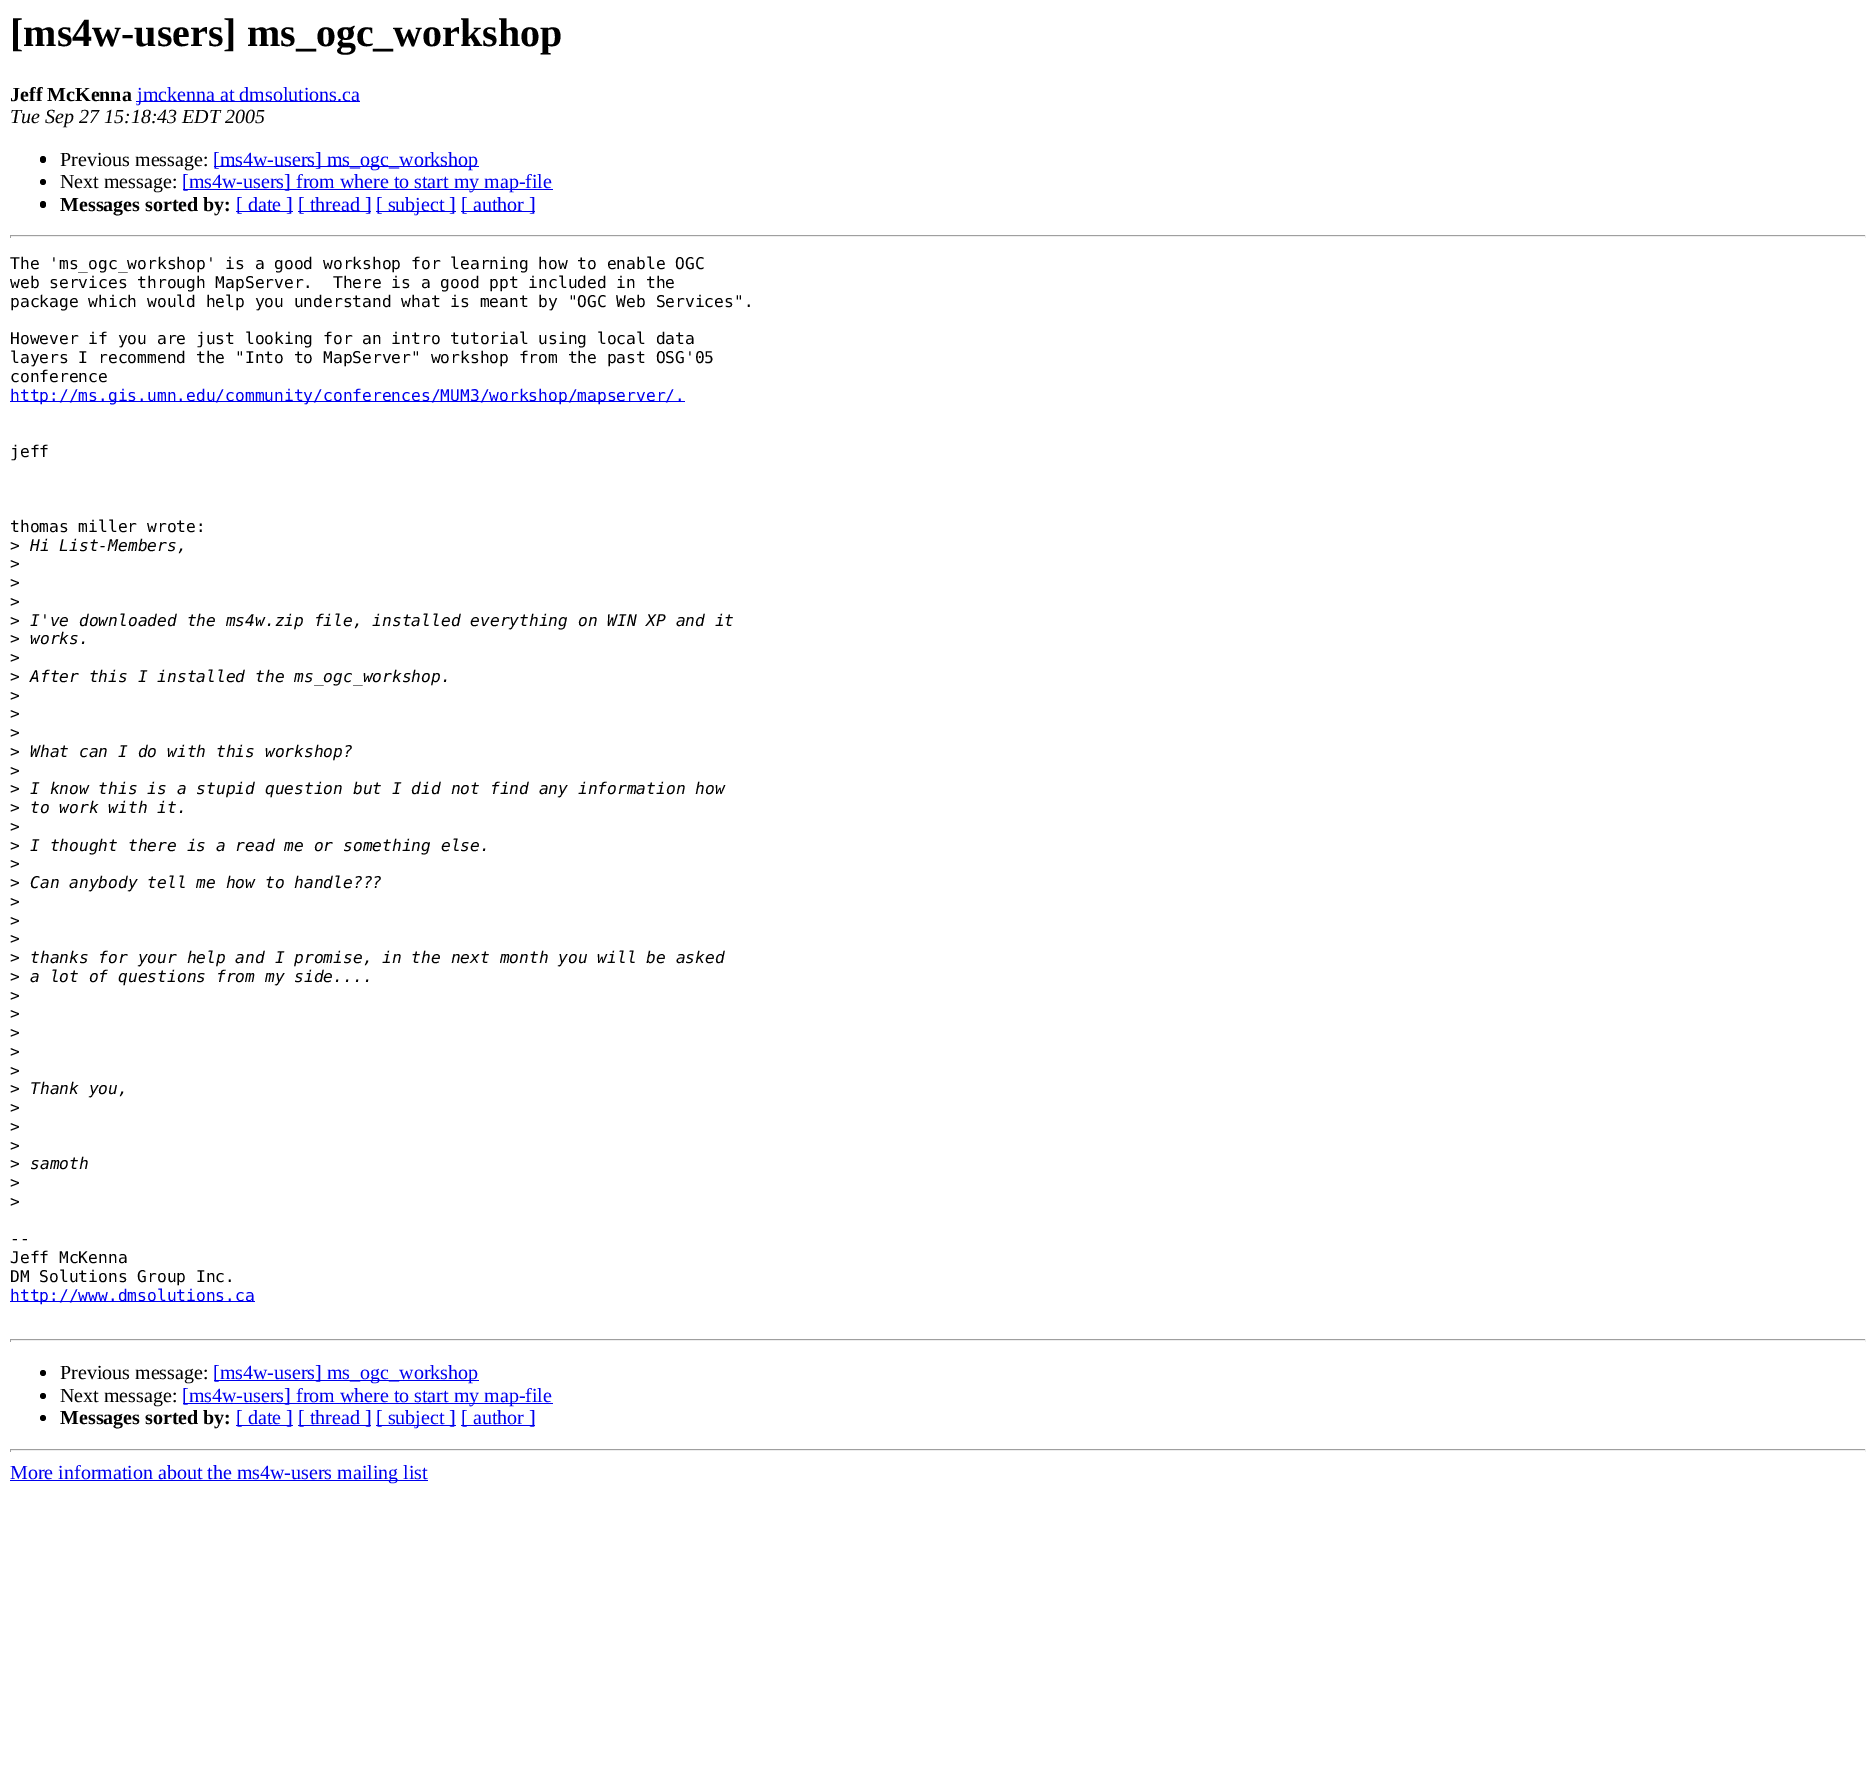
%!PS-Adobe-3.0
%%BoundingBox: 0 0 1876 1776
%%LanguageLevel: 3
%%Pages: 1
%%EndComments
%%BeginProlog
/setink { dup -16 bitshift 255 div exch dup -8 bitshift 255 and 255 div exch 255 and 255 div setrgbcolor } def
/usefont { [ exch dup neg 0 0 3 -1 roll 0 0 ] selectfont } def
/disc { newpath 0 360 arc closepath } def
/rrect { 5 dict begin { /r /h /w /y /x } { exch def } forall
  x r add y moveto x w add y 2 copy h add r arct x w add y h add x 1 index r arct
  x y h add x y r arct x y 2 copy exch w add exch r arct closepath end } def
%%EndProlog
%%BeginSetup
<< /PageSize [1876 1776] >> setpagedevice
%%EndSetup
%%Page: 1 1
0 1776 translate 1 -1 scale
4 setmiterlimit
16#FFFFFF setink
0 0 1876 1776 rectfill
/LiberationSerif-Bold 40 usefont
16#000000 setink
10 46 moveto ([ms4w-users] ms_ogc_workshop) show
/LiberationSerif-Bold 20 usefont
10 101 moveto (Jeff McKenna) show
16#0000EE setink
136 101 224 1 rectfill
/LiberationSerif-Regular 20 usefont
137 101 moveto (jmckenna at dmsolutions.ca) show
/LiberationSerif-Italic 20 usefont
16#000000 setink
10 123 moveto (Tue Sep 27 15:18:43 EDT 2005) show
40 156 6 7 3 rrect fill
/LiberationSerif-Regular 20 usefont
60 166 moveto (Previous message:) show
16#0000EE setink
214 166 265 1 rectfill
213 166 moveto ([ms4w-users] ms_ogc_workshop) show
16#000000 setink
43 182 3 disc fill
60 188 moveto (Next message:) show
16#0000EE setink
183 189 370 1 rectfill
182 188 moveto ([ms4w-users] from where to start my map-file) show
16#000000 setink
40 201 6 7 3 rrect fill
/LiberationSerif-Bold 20 usefont
60 211 moveto (Messages sorted by:) show
16#0000EE setink
236 211 57 1 rectfill
/LiberationSerif-Regular 20 usefont
236 211 moveto ([ date ]) show
298 211 73 1 rectfill
298 211 moveto ([ thread ]) show
376 211 80 1 rectfill
376 211 moveto ([ subject ]) show
461 211 74 1 rectfill
461 211 moveto ([ author ]) show
[
    [10 235 1856 1 16#9F9F9F]
    [1865 235 1 3 16#EEEEEE]
    [10 236 1856 1 16#EEEEEE]
    [10 235 1 3 16#9F9F9F]
] { aload pop setink rectfill } forall
/DejaVuSansMono-Regular 16.25 usefont
16#000000 setink
[
    [(The 'ms_ogc_workshop' is a good workshop for learning how to enable OGC) 10 269]
    [(web services through MapServer.  There is a good ppt included in the) 10 288]
    [(package which would help you understand what is meant by "OGC Web Services".) 10 307]
    [(However if you are just looking for an intro tutorial using local data) 10 344]
    [(layers I recommend the "Into to MapServer" workshop from the past OSG'05) 10 363]
    [(conference) 10 382]
] { aload pop moveto show } forall
16#0000EE setink
10 401 675 1 rectfill
10 401 moveto (http://ms.gis.umn.edu/community/conferences/MUM3/workshop/mapserver/.) show
16#000000 setink
[
    [(jeff) 10 457]
    [(thomas miller wrote:) 10 532]
    [(>) 10 551]
] { aload pop moveto show } forall
/DejaVuSansMono-Italic 16.25 usefont
30 551 moveto (Hi List-Members,) show
/DejaVuSansMono-Regular 16.25 usefont
[
    [(>) 10 569]
    [(>) 10 588]
    [(>) 10 607]
    [(>) 10 626]
] { aload pop moveto show } forall
/DejaVuSansMono-Italic 16.25 usefont
30 626 moveto (I've downloaded the ms4w.zip file, installed everything on WIN XP and it) show
/DejaVuSansMono-Regular 16.25 usefont
10 644 moveto (>) show
/DejaVuSansMono-Italic 16.25 usefont
30 644 moveto (works.) show
/DejaVuSansMono-Regular 16.25 usefont
10 663 moveto (>) show
10 682 moveto (>) show
/DejaVuSansMono-Italic 16.25 usefont
30 682 moveto (After this I installed the ms_ogc_workshop.) show
/DejaVuSansMono-Regular 16.25 usefont
[
    [(>) 10 701]
    [(>) 10 719]
    [(>) 10 738]
    [(>) 10 757]
] { aload pop moveto show } forall
/DejaVuSansMono-Italic 16.25 usefont
30 757 moveto (What can I do with this workshop?) show
/DejaVuSansMono-Regular 16.25 usefont
10 776 moveto (>) show
10 794 moveto (>) show
/DejaVuSansMono-Italic 16.25 usefont
30 794 moveto (I know this is a stupid question but I did not find any information how) show
/DejaVuSansMono-Regular 16.25 usefont
10 813 moveto (>) show
/DejaVuSansMono-Italic 16.25 usefont
30 813 moveto (to work with it.) show
/DejaVuSansMono-Regular 16.25 usefont
10 832 moveto (>) show
10 851 moveto (>) show
/DejaVuSansMono-Italic 16.25 usefont
30 851 moveto (I thought there is a read me or something else.) show
/DejaVuSansMono-Regular 16.25 usefont
10 869 moveto (>) show
10 888 moveto (>) show
/DejaVuSansMono-Italic 16.25 usefont
30 888 moveto (Can anybody tell me how to handle???) show
/DejaVuSansMono-Regular 16.25 usefont
[
    [(>) 10 907]
    [(>) 10 926]
    [(>) 10 944]
    [(>) 10 963]
] { aload pop moveto show } forall
/DejaVuSansMono-Italic 16.25 usefont
30 963 moveto (thanks for your help and I promise, in the next month you will be asked) show
/DejaVuSansMono-Regular 16.25 usefont
10 982 moveto (>) show
/DejaVuSansMono-Italic 16.25 usefont
30 982 moveto (a lot of questions from my side....) show
/DejaVuSansMono-Regular 16.25 usefont
[
    [(>) 10 1001]
    [(>) 10 1019]
    [(>) 10 1038]
    [(>) 10 1057]
    [(>) 10 1076]
    [(>) 10 1094]
] { aload pop moveto show } forall
/DejaVuSansMono-Italic 16.25 usefont
30 1094 moveto (Thank you,) show
/DejaVuSansMono-Regular 16.25 usefont
[
    [(>) 10 1113]
    [(>) 10 1132]
    [(>) 10 1151]
    [(>) 10 1169]
] { aload pop moveto show } forall
/DejaVuSansMono-Italic 16.25 usefont
30 1169 moveto (samoth) show
/DejaVuSansMono-Regular 16.25 usefont
[
    [(>) 10 1188]
    [(>) 10 1207]
    [(--) 10 1244]
    [(Jeff McKenna) 10 1263]
    [(DM Solutions Group Inc.) 10 1282]
] { aload pop moveto show } forall
16#0000EE setink
10 1301 245 1 rectfill
10 1301 moveto (http://www.dmsolutions.ca) show
[
    [10 1339 1856 1 16#9F9F9F]
    [1865 1339 1 3 16#EEEEEE]
    [10 1340 1856 1 16#EEEEEE]
    [10 1339 1 3 16#9F9F9F]
] { aload pop setink rectfill } forall
16#000000 setink
43 1373 3 disc fill
/LiberationSerif-Regular 20 usefont
60 1379 moveto (Previous message:) show
16#0000EE setink
214 1380 265 1 rectfill
213 1379 moveto ([ms4w-users] ms_ogc_workshop) show
16#000000 setink
43 1396 3 disc fill
60 1402 moveto (Next message:) show
16#0000EE setink
183 1403 370 1 rectfill
182 1402 moveto ([ms4w-users] from where to start my map-file) show
16#000000 setink
43 1418 3 disc fill
/LiberationSerif-Bold 20 usefont
60 1424 moveto (Messages sorted by:) show
16#0000EE setink
236 1425 57 1 rectfill
/LiberationSerif-Regular 20 usefont
236 1424 moveto ([ date ]) show
298 1425 73 1 rectfill
298 1424 moveto ([ thread ]) show
376 1425 80 1 rectfill
376 1424 moveto ([ subject ]) show
461 1425 74 1 rectfill
461 1424 moveto ([ author ]) show
[
    [10 1449 1856 1 16#9F9F9F]
    [1865 1449 1 3 16#EEEEEE]
    [10 1450 1856 1 16#EEEEEE]
    [10 1449 1 3 16#9F9F9F]
    [10 1480 418 1 16#0000EE]
] { aload pop setink rectfill } forall
10 1479 moveto (More information about the ms4w-users mailing list) show
showpage
%%EOF
